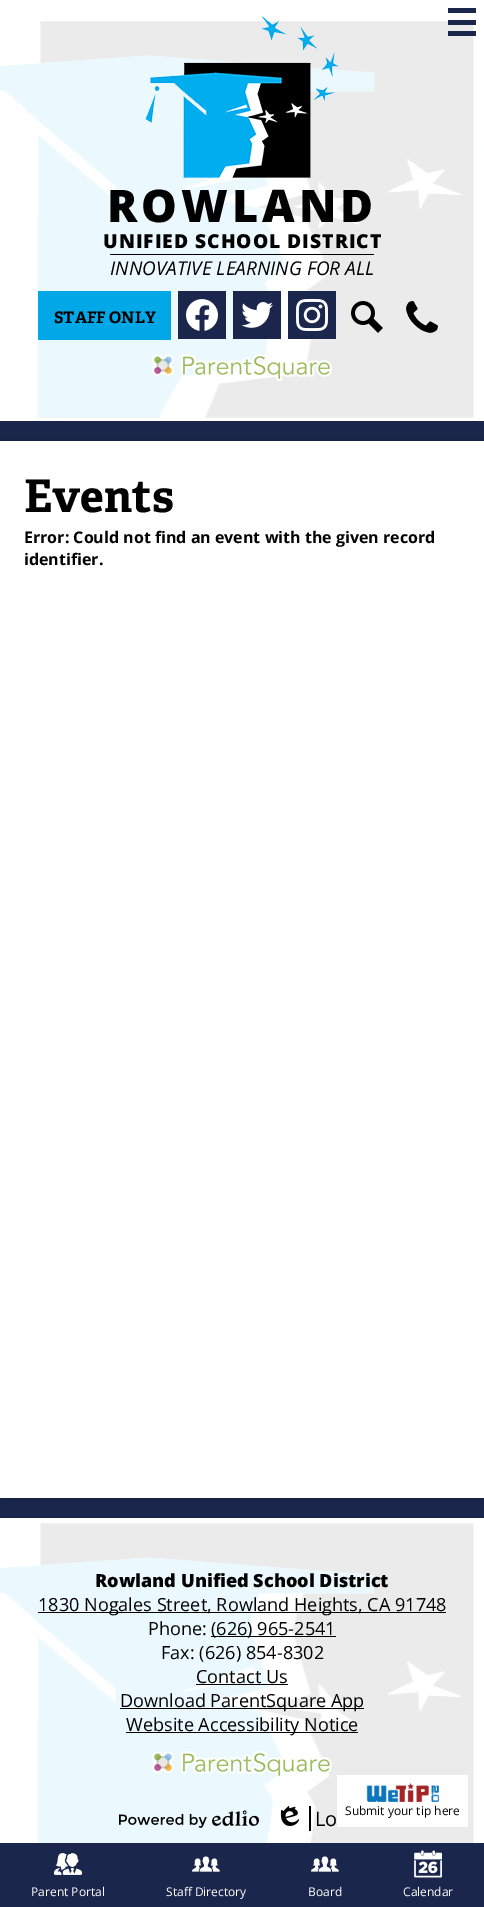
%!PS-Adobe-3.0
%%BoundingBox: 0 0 484 1907
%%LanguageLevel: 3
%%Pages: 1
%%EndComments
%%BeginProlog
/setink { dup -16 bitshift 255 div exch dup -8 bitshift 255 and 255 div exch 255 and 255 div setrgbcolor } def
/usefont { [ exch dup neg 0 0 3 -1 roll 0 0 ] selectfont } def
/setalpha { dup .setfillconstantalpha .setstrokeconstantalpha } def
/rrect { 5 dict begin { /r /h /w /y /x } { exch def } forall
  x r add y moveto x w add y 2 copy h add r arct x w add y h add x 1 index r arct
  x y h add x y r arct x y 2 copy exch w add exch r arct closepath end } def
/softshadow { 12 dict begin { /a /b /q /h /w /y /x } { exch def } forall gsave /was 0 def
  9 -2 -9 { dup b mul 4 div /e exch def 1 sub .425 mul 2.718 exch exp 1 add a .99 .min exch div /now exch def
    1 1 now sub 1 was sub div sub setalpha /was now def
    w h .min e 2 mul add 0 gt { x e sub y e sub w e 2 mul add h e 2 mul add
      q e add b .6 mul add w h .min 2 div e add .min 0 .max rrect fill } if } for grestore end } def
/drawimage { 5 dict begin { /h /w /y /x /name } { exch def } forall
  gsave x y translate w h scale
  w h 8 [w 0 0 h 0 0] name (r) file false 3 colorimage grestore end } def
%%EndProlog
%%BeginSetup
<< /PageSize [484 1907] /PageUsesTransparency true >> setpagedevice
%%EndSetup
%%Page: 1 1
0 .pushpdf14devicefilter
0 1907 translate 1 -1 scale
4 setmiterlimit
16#1A264C setink
0 0 484 1907 rectfill
16#FFFFFF setink
0 1518 484 325 rectfill
16#000000 setink
0 441 484 1057 0 7.5 0.15 softshadow
16#FFFFFF setink
0 0 484 421 rectfill
(img1.raw) 0 21 484 397 drawimage
[
    [448 8 28 5 16#1A264C]
    [448 20 28 5 16#1A264C]
    [448 31 28 5 16#1A264C]
] { aload pop setink rectfill } forall
(img2.raw) 145 15 194 163 drawimage
/OpenSans-ExtraBold 45 usefont
16#000000 setink
107 222 moveto 4 0 (ROWLAND) ashow
/OpenSans-ExtraBold 19.25 usefont
103 248 moveto 1 0 (UNIFIED SCHOOL DISTRICT) ashow
110 254 264 1 rectfill
/OpenSans-Italic 19 usefont
110 275 moveto (INNOVATIVE LEARNING FOR ALL) show
16#00A8E8 setink
38 291 133 49 rectfill
/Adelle-Bold 16 usefont
16#000000 setink
54 323 moveto (STAFF ONLY) show
16#1A264C setink
178 291 48 48 rectfill
(img3.raw) 186 299 32 32 drawimage
233 291 48 48 rectfill
(img4.raw) 241 302 32 26 drawimage
288 291 48 48 rectfill
(img5.raw) 296 299 32 32 drawimage
(img6.raw) 351 301 32 32 drawimage
(img7.raw) 406 301 32 32 drawimage
(img8.raw) 152 354 180 27 drawimage
(img10.raw) 0 1523 484 320 drawimage
16#FFFFFF setink
337 1775 131 52 rectfill
(img9.raw) 366 1783 73 19 drawimage
/OpenSans-Regular 12 usefont
16#000000 setink
345 1815 moveto (Submit your tip here) show
16#FFFFFF setink
0 441 484 1057 rectfill
/Adelle-Bold 45 usefont
16#000000 setink
24 512 moveto (Events) show
/OpenSans-Bold 16 usefont
24 543 moveto (Error: Could not find an event with the given record) show
24 565 moveto (identifier.) show
/OpenSans-ExtraBold 18.1 usefont
95 1587 moveto (Rowland Unified School District) show
38 1612 408 1 rectfill
/OpenSans-Regular 18.1 usefont
38 1611 moveto (1830 Nogales Street, Rowland Heights, CA 91748) show
148 1635 moveto (Phone:) show
211 1636 125 1 rectfill
[
    [(\(626\) 965-2541) 211 1635]
    [(Fax: \(626\) 854-8302) 161 1659]
    [(Contact Us) 196 1683]
] { aload pop moveto show } forall
196 1684 92 1 rectfill
120 1708 244 1 rectfill
120 1707 moveto (Download ParentSquare App) show
126 1732 232 1 rectfill
126 1731 moveto (Website Accessibility Notice) show
(img11.raw) 152 1751 180 26 drawimage
(img12.raw) 119 1810 140 18 drawimage
309 1806 2 25 rectfill
(img13.raw) 280 1806 20 20 drawimage
/OpenSans-Regular 20 usefont
315 1826 moveto (Lo) show
(img14.raw) 54 1853 28 22 drawimage
/OpenSans-Regular 12 usefont
16#FFFFFF setink
31 1896 moveto (Parent Portal) show
(img15.raw) 192 1856 28 16 drawimage
166 1896 moveto (Staff Directory) show
(img15.raw) 311 1856 28 16 drawimage
308 1896 moveto (Board) show
(img16.raw) 414 1850 28 28 drawimage
403 1896 moveto (Calendar) show
.poppdf14devicefilter showpage
%%EOF
